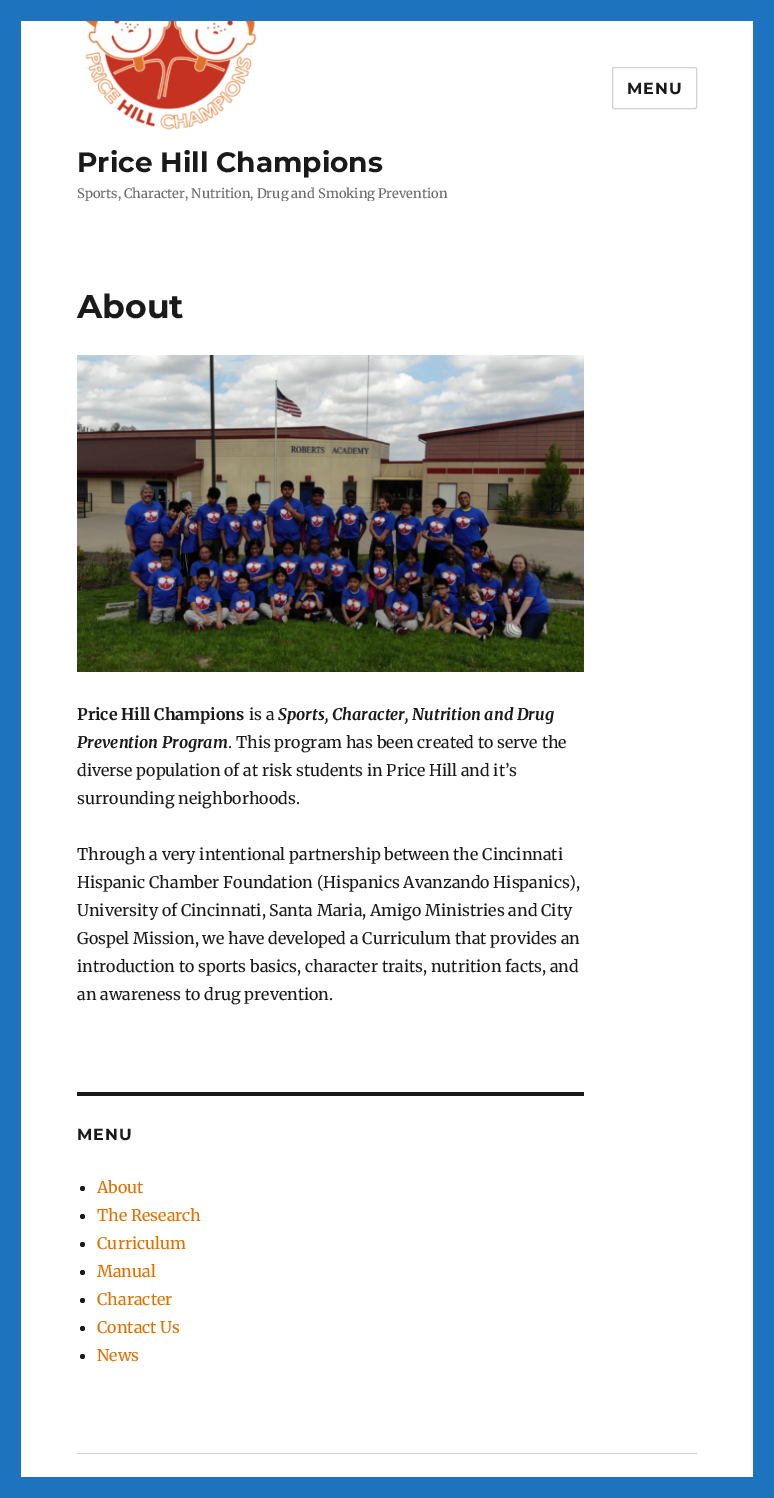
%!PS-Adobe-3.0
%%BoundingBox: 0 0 774 1498
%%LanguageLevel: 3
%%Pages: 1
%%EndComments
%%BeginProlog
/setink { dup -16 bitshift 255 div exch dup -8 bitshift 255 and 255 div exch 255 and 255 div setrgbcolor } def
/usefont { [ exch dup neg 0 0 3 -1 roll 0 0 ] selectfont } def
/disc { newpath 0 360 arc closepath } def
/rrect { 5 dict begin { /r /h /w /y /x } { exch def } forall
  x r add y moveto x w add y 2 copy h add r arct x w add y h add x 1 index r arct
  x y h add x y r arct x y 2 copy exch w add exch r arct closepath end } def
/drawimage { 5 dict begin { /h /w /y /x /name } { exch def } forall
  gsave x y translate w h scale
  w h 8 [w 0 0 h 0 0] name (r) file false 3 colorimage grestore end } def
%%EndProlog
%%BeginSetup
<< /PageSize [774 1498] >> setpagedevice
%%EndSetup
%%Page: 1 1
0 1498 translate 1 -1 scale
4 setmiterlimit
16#1E73BE setink
0 0 774 1498 rectfill
16#FFFFFF setink
21 21 732 1456 rectfill
16#D1D1D1 setink
612.5 67.5 84 41 1.5 rrect stroke
/Montserrat-Bold 16 usefont
16#1A1A1A setink
627 94 moveto 1 0 (MENU) ashow
(img1.raw) 83 21 175 109 drawimage
/Montserrat-Bold 28 usefont
77 172 moveto (Price Hill Champions) show
gsave
77 0 371 201 rectclip
/Merriweather-Regular 13 usefont
16#686868 setink
77 198 moveto (Sports, Character, Nutrition, Drug and Smoking Prevention) show
grestore
/Montserrat-Bold 33 usefont
77 318 moveto (About) show
(img2.raw) 77 355 507 317 drawimage
/Merriweather-Bold 16 usefont
77 720 moveto (Price Hill Champions) show
/Merriweather-Regular 16 usefont
249 720 moveto (is a) show
/Merriweather-BoldItalic 16 usefont
278 720 moveto (Sports, Character, Nutrition and Drug) show
77 748 moveto (Prevention Program) show
/Merriweather-Regular 16 usefont
[
    [(. This program has been created to serve the) 228 748]
    [(diverse population of at risk students in Price Hill and it’s) 77 776]
    [(surrounding neighborhoods.) 77 804]
    [(Through a very intentional partnership between the Cincinnati) 77 860]
    [(Hispanic Chamber Foundation \(Hispanics Avanzando Hispanics\),) 77 888]
    [(University of Cincinnati, Santa Maria, Amigo Ministries and City) 77 916]
    [(Gospel Mission, we have developed a Curriculum that provides an) 77 944]
    [(introduction to sports basics, character traits, nutrition facts, and) 77 972]
    [(an awareness to drug prevention.) 77 1000]
] { aload pop moveto show } forall
77 1092 507 4 rectfill
/Montserrat-Bold 16 usefont
77 1140 moveto 1 0 (MENU) ashow
82.5 1188.5 2.5 disc fill
/Merriweather-Regular 16 usefont
16#E07000 setink
97 1193 moveto (About) show
16#1A1A1A setink
82.5 1216.5 2.5 disc fill
16#E07000 setink
97 1221 moveto (The Research) show
16#1A1A1A setink
82.5 1244.5 2.5 disc fill
16#E07000 setink
97 1249 moveto (Curriculum) show
16#1A1A1A setink
82.5 1272.5 2.5 disc fill
16#E07000 setink
97 1277 moveto (Manual) show
16#1A1A1A setink
82.5 1300.5 2.5 disc fill
16#E07000 setink
97 1305 moveto (Character) show
16#1A1A1A setink
82.5 1328.5 2.5 disc fill
16#E07000 setink
97 1333 moveto (Contact Us) show
16#1A1A1A setink
82.5 1356.5 2.5 disc fill
16#E07000 setink
97 1361 moveto (News) show
16#D1D1D1 setink
77 1453 620 1 rectfill
showpage
%%EOF
